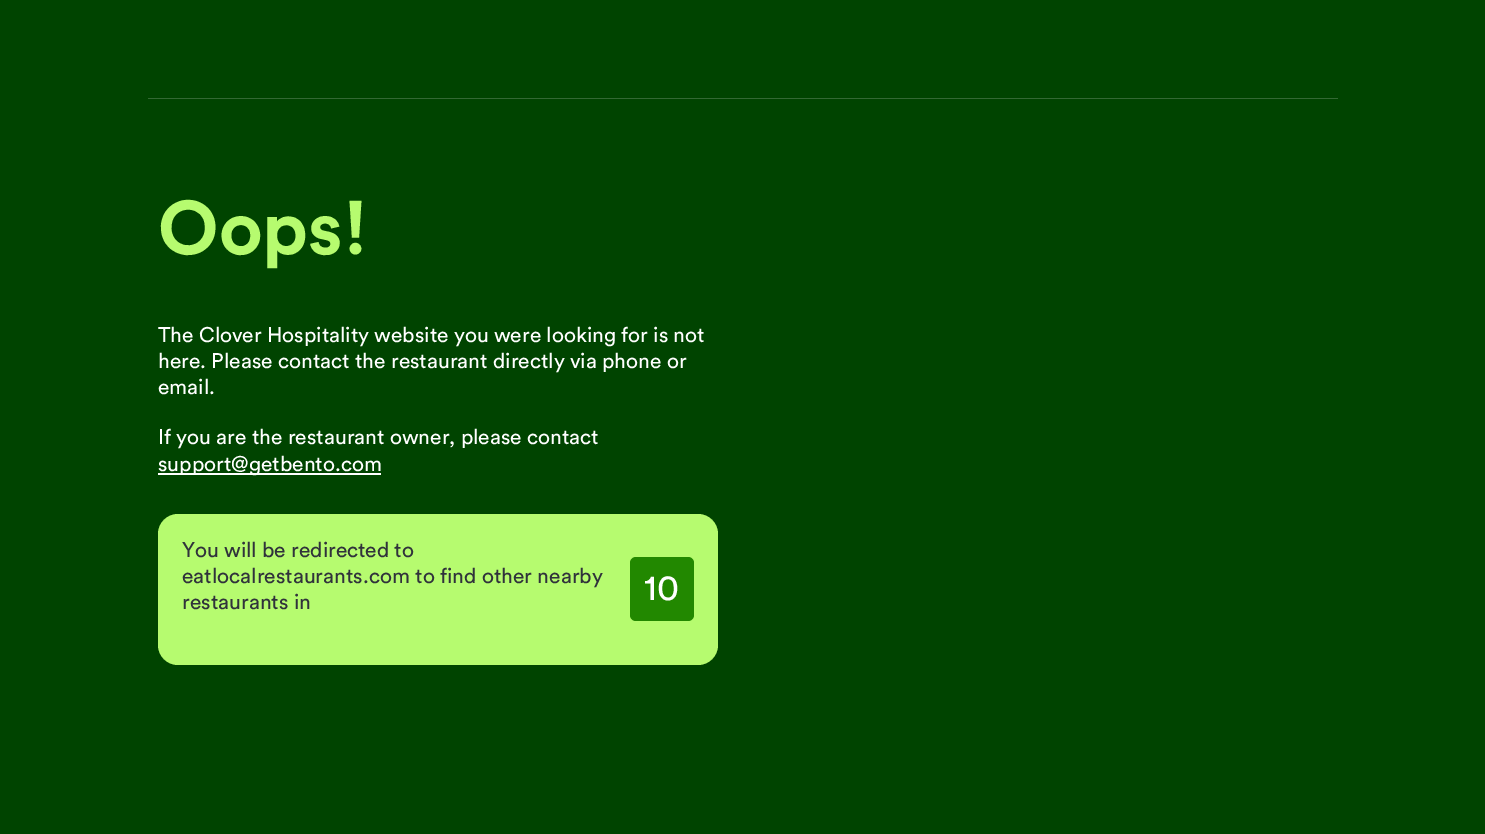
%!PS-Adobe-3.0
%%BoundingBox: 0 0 1485 834
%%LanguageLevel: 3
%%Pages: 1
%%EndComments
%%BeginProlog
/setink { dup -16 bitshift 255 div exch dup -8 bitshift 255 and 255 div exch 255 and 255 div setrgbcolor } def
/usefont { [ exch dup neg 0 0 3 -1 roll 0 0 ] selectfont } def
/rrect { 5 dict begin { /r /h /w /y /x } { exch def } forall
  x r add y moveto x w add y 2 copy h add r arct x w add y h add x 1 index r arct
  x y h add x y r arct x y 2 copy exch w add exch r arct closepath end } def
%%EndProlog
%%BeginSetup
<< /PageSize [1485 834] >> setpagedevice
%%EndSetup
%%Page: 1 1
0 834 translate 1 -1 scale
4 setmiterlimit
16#004400 setink
0 0 1485 834 rectfill
16#336933 setink
148 98 1190 1 rectfill
/Circular-Bold 75 usefont
16#B6FB6F setink
158 254 moveto (Oops!) show
/Circular-Regular 21 usefont
16#FFFFFF setink
[
    [(The Clover Hospitality website you were looking for is not) 158 342]
    [(here. Please contact the restaurant directly via phone or) 158 368]
    [(email.) 158 394]
    [(If you are the restaurant owner, please contact) 158 444]
] { aload pop moveto show } forall
158 473 223 2 rectfill
158 471 moveto (support@getbento.com) show
16#B6FB6F setink
158 514 560 151 20 rrect fill
16#30323B setink
[
    [(You will be redirected to) 182 557]
    [(eatlocalrestaurants.com to find other nearby) 182 583]
    [(restaurants in) 182 609]
] { aload pop moveto show } forall
16#228800 setink
630 557 64 64 6 rrect fill
/Circular-Regular 36 usefont
16#FFFFFF setink
644 600 moveto (10) show
showpage
%%EOF
